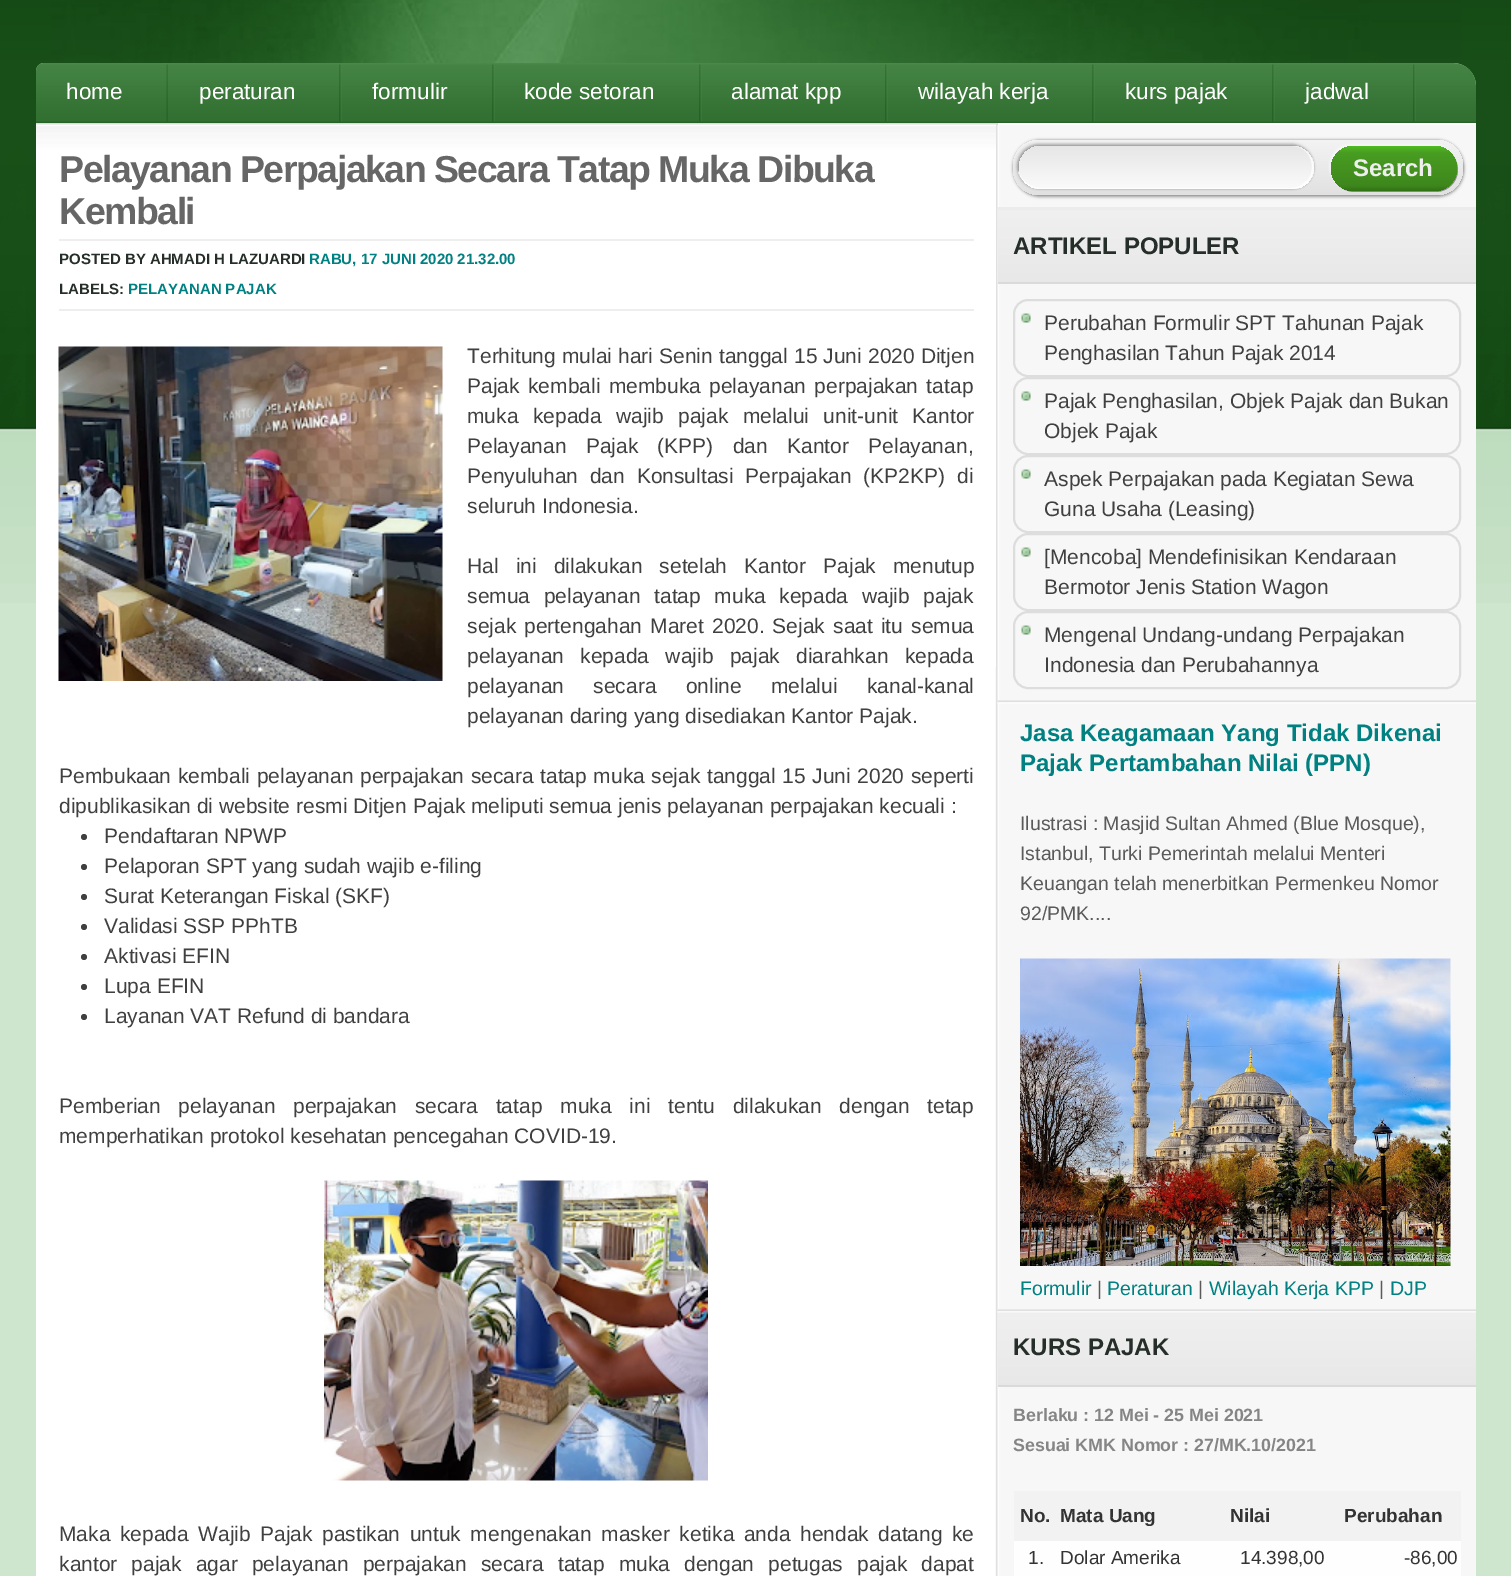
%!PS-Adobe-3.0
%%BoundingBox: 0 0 1511 1576
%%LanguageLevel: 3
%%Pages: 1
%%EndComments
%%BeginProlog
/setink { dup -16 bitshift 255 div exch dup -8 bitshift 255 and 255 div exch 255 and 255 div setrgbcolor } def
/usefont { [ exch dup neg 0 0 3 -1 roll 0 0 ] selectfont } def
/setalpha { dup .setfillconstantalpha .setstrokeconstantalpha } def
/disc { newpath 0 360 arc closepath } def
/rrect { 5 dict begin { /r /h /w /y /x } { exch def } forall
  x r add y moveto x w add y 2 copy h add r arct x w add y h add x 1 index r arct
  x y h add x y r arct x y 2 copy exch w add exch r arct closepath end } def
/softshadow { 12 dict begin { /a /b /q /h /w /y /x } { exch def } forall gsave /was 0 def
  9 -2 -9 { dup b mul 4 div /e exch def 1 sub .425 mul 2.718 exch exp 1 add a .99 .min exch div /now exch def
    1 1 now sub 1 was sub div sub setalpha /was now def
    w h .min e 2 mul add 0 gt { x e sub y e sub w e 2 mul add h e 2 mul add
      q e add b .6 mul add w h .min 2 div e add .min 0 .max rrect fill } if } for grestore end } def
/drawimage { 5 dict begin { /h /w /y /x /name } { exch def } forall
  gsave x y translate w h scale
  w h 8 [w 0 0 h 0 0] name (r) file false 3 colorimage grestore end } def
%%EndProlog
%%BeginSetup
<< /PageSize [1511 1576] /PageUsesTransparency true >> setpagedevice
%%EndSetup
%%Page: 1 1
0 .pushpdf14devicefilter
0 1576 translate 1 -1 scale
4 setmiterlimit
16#CEE5CE setink
0 0 1511 1576 rectfill
(img1.raw) 0 0 1511 603 drawimage
(img2.raw) 51 0 1410 65 drawimage
(img3.raw) 36 63 1440 60 drawimage
(img4.raw) 166 64 2 58 drawimage
/LiberationSans-Regular 22.5 usefont
16#FFFFFF setink
66 99 moveto (home) show
(img5.raw) 339 64 3 58 drawimage
199 99 moveto (peraturan) show
(img5.raw) 492 64 3 58 drawimage
372 99 moveto (formulir) show
(img6.raw) 699 64 3 58 drawimage
524 99 moveto (kode setoran) show
(img6.raw) 885 64 3 58 drawimage
731 99 moveto (alamat kpp) show
(img5.raw) 1092 64 3 58 drawimage
918 99 moveto (wilayah kerja) show
(img6.raw) 1272 64 3 58 drawimage
1125 99 moveto (kurs pajak) show
(img6.raw) 1413 64 3 58 drawimage
1305 99 moveto (jadwal) show
(img7.raw) 36 125 1440 1451 drawimage
16#DADADA setink
36 123 962 2 rectfill
(img8.raw) 36 124 960 543 drawimage
/LiberationSans-Bold 37.5 usefont
16#666666 setink
59 182 moveto -1.5 0 (Pelayanan Perpajakan Secara Tatap Muka Dibuka) ashow
59 224 moveto -1.5 0 (Kembali) ashow
16#EEEEEE setink
59 239 915 2 rectfill
59 309 915 2 rectfill
/LiberationSans-Bold 15 usefont
16#252E28 setink
59 264 moveto (POSTED BY AHMADI H LAZUARDI) show
16#008080 setink
309 264 moveto (RABU, 17 JUNI 2020 21.32.00) show
16#252E28 setink
59 294 moveto (LABELS:) show
16#008080 setink
128 294 moveto (PELAYANAN PAJAK) show
(img9.raw) 58 346 385 335 drawimage
/LiberationSans-Regular 21 usefont
16#404040 setink
467 363 moveto 0.25 0 32 (Terhitung mulai hari Senin tanggal 15 Juni 2020 Ditjen) widthshow
467 393 moveto 2.5 0 32 (Pajak kembali membuka pelayanan perpajakan tatap) widthshow
467 423 moveto 8.5 0 32 (muka kepada wajib pajak melalui unit-unit Kantor) widthshow
467 453 moveto 13.5 0 32 (Pelayanan Pajak \(KPP\) dan Kantor Pelayanan,) widthshow
467 483 moveto 6 0 32 (Penyuluhan dan Konsultasi Perpajakan \(KP2KP\) di) widthshow
467 513 moveto (seluruh Indonesia.) show
467 573 moveto 11.25 0 32 (Hal ini dilakukan setelah Kantor Pajak menutup) widthshow
467 603 moveto 7.75 0 32 (semua pelayanan tatap muka kepada wajib pajak) widthshow
467 633 moveto 2.25 0 32 (sejak pertengahan Maret 2020. Sejak saat itu semua) widthshow
467 663 moveto 10.5 0 32 (pelayanan kepada wajib pajak diarahkan kepada) widthshow
467 693 moveto 23.5 0 32 (pelayanan secara online melalui kanal-kanal) widthshow
467 723 moveto (pelayanan daring yang disediakan Kantor Pajak.) show
59 783 moveto 0.75 0 32 (Pembukaan kembali pelayanan perpajakan secara tatap muka sejak tanggal 15 Juni 2020 seperti) widthshow
59 813 moveto (dipublikasikan di website resmi Ditjen Pajak meliputi semua jenis pelayanan perpajakan kecuali :) show
84 837 3 disc fill
104 843 moveto (Pendaftaran NPWP) show
84 867 3 disc fill
104 873 moveto (Pelaporan SPT yang sudah wajib e-filing) show
84 897 3 disc fill
104 903 moveto (Surat Keterangan Fiskal \(SKF\)) show
84 927 3 disc fill
104 933 moveto (Validasi SSP PPhTB) show
84 957 3 disc fill
104 963 moveto (Aktivasi EFIN) show
84 987 3 disc fill
104 993 moveto (Lupa EFIN) show
84 1017 3 disc fill
104 1023 moveto (Layanan VAT Refund di bandara) show
59 1113 moveto 12 0 32 (Pemberian pelayanan perpajakan secara tatap muka ini tentu dilakukan dengan tetap) widthshow
59 1143 moveto (memperhatikan protokol kesehatan pencegahan COVID-19.) show
(img10.raw) 324 1180 384 301 drawimage
59 1541 moveto 3.6 0 32 (Maka kepada Wajib Pajak pastikan untuk mengenakan masker ketika anda hendak datang ke) widthshow
59 1571 moveto 8.25 0 32 (kantor pajak agar pelayanan perpajakan secara tatap muka dengan petugas pajak dapat) widthshow
16#FFFFFF setink
998 123 478 2 rectfill
16#ECECEC setink
997 207 479 3 rectfill
16#000000 setink
1013 140 450 55 26 1.5 0.3 softshadow
1014 141 450 56 26 1.5 0.3 softshadow
gsave 1013 140 450 55 26 rrect clip newpath
<< /ShadingType 2 /ColorSpace /DeviceRGB /Coords [1013 140 1013 195] /Extend [true true] /Function << /FunctionType 2 /Domain [0 1] /C0 [0.953 0.953 0.953] /C1 [0.882 0.882 0.882] /N 1 >> >> shfill grestore
1019 146 295 43 21.5 1 0.2 softshadow
1017 144 296 44 22 1.5 0.3 softshadow
gsave
1019 146 295 43 21.5 rrect clip newpath
gsave 1040.5 146 moveto 1292.5 146 lineto 1304.5 146 1314 155.5 1314 167.5 curveto 1314 188 lineto 1019 188 lineto 1019 167.5 lineto 1019 155.5 1028.5 146 1040.5 146 curveto closepath clip newpath
<< /ShadingType 2 /ColorSpace /DeviceRGB /Coords [1019 188 1019 146] /Extend [true true] /Function << /FunctionType 2 /Domain [0 1] /C0 [0.98 0.98 0.98] /C1 [0.902 0.902 0.902] /N 1 >> >> shfill grestore
gsave 1034 188 moveto 1299 188 lineto 1299 189 lineto 1034 189 lineto closepath clip newpath
<< /ShadingType 2 /ColorSpace /DeviceRGB /Coords [1019 230 1019 188] /Extend [true true] /Function << /FunctionType 2 /Domain [0 1] /C0 [0.98 0.98 0.98] /C1 [0.902 0.902 0.902] /N 1 >> >> shfill grestore
grestore
0.8 setalpha
16#FFFFFF setink
1306.5 181.5 moveto 1318 168.5 1310.5 146 1292 146 curveto 1311.5 146 1321 169 1307.5 182.5 curveto closepath fill
1 setalpha
1018 171 moveto 1021 180 1030 188 1040 188 curveto 1292 188 lineto 1298 188 1303 185 1306 181 curveto 1308 182 lineto 1304 186 1298 189 1292 189 curveto 1040 189 lineto 1030 189 1021 181 1018 172 curveto closepath fill
0.4 setalpha
16#000000 setink
1338 185 moveto 1342 189 1348 192 1354 192 curveto 1436 192 lineto 1448 192 1458 182 1458 170 curveto 1458 163 1455 157 1451 153 curveto 1454 157 1456 162 1456 168 curveto 1456 180 1446 190 1434 190 curveto 1353 190 lineto 1347 190 1342 188 1338 185 curveto closepath fill
1 setalpha
16#FFFFFF setink
1329 144 126 45 22.5 1 0.5 softshadow
gsave 1331 146 126 45 22.5 rrect clip newpath
<< /ShadingType 2 /ColorSpace /DeviceRGB /Coords [1331 146 1331 191] /Extend [true true] /Function << /FunctionType 3 /Domain [0 1] /Functions [<< /FunctionType 2 /Domain [0 1] /C0 [0.31 0.737 0.125] /C1 [0.286 0.616 0.133] /N 1 >> << /FunctionType 2 /Domain [0 1] /C0 [0.286 0.616 0.133] /C1 [0.243 0.529 0.11] /N 1 >> << /FunctionType 2 /Domain [0 1] /C0 [0.243 0.529 0.11] /C1 [0.192 0.447 0.082] /N 1 >>] /Bounds [0.15 0.88] /Encode [0 1 0 1 0 1] >> >> shfill grestore
/LiberationSans-Bold 24 usefont
16#EEEEEE setink
1353 176 moveto (Search) show
(img11.raw) 997 700 479 4 drawimage
(img12.raw) 998 210 478 72 drawimage
16#DADADA setink
998 282 478 2 rectfill
16#252E28 setink
1013 254 moveto (ARTIKEL POPULER) show
(img13.raw) 1021 313 10 10 drawimage
16#DDDDDD setink
2 setlinewidth
1014 300 446 76 14 rrect stroke
/LiberationSans-Regular 21 usefont
16#404040 setink
1044 330 moveto (Perubahan Formulir SPT Tahunan Pajak) show
1044 360 moveto (Penghasilan Tahun Pajak 2014) show
(img13.raw) 1021 391 10 10 drawimage
16#DDDDDD setink
1014 378 446 76 14 rrect stroke
16#404040 setink
1044 408 moveto (Pajak Penghasilan, Objek Pajak dan Bukan) show
1044 438 moveto (Objek Pajak) show
(img13.raw) 1021 469 10 10 drawimage
16#DDDDDD setink
1014 456 446 76 14 rrect stroke
16#404040 setink
1044 486 moveto (Aspek Perpajakan pada Kegiatan Sewa) show
1044 516 moveto (Guna Usaha \(Leasing\)) show
(img13.raw) 1021 547 10 10 drawimage
16#DDDDDD setink
1014 534 446 76 14 rrect stroke
16#404040 setink
1044 564 moveto ([Mencoba] Mendefinisikan Kendaraan) show
1044 594 moveto (Bermotor Jenis Station Wagon) show
(img13.raw) 1021 625 10 10 drawimage
16#DDDDDD setink
1014 612 446 76 14 rrect stroke
16#404040 setink
1044 642 moveto (Mengenal Undang-undang Perpajakan) show
1044 672 moveto (Indonesia dan Perubahannya) show
(img11.raw) 997 1309 479 4 drawimage
/LiberationSans-Bold 24 usefont
16#008080 setink
1020 741 moveto (Jasa Keagamaan Yang Tidak Dikenai) show
1020 771 moveto (Pajak Pertambahan Nilai \(PPN\)) show
/LiberationSans-Regular 19.5 usefont
16#5A5A5A setink
[
    [(Ilustrasi : Masjid Sultan Ahmed \(Blue Mosque\),) 1020 830]
    [(Istanbul, Turki Pemerintah melalui Menteri) 1020 860]
    [(Keuangan telah menerbitkan Permenkeu Nomor) 1020 890]
    [(92/PMK....) 1020 920]
] { aload pop moveto show } forall
(img14.raw) 1020 958 431 308 drawimage
16#008080 setink
1020 1295 moveto (Formulir) show
16#5A5A5A setink
1097 1295 moveto (|) show
16#008080 setink
1107 1295 moveto (Peraturan) show
16#5A5A5A setink
1198 1295 moveto (|) show
16#008080 setink
1209 1295 moveto (Wilayah Kerja KPP) show
16#5A5A5A setink
1379 1295 moveto (|) show
16#008080 setink
1390 1295 moveto (DJP) show
(img15.raw) 998 1312 478 73 drawimage
16#DADADA setink
998 1385 478 2 rectfill
/LiberationSans-Bold 24 usefont
16#252E28 setink
1013 1355 moveto (KURS PAJAK) show
/LiberationSans-Bold 17.8 usefont
16#858585 setink
1013 1421 moveto (Berlaku : 12 Mei - 25 Mei 2021) show
1013 1451 moveto (Sesuai KMK Nomor : 27/MK.10/2021) show
16#F2F2F2 setink
1014 1491 447 50 rectfill
/LiberationSans-Bold 19 usefont
16#333333 setink
[
    [(No.) 1020 1522]
    [(Mata Uang) 1060 1522]
    [(Nilai) 1230 1522]
    [(Perubahan) 1344 1522]
] { aload pop moveto show } forall
16#FEFEFE setink
1014 1541 447 35 rectfill
/LiberationSans-Regular 19 usefont
16#333333 setink
[
    [(1.) 1028 1564]
    [(Dolar Amerika) 1060 1564]
    [(14.398,00) 1240 1564]
    [(-86,00) 1404 1564]
] { aload pop moveto show } forall
.poppdf14devicefilter showpage
%%EOF
